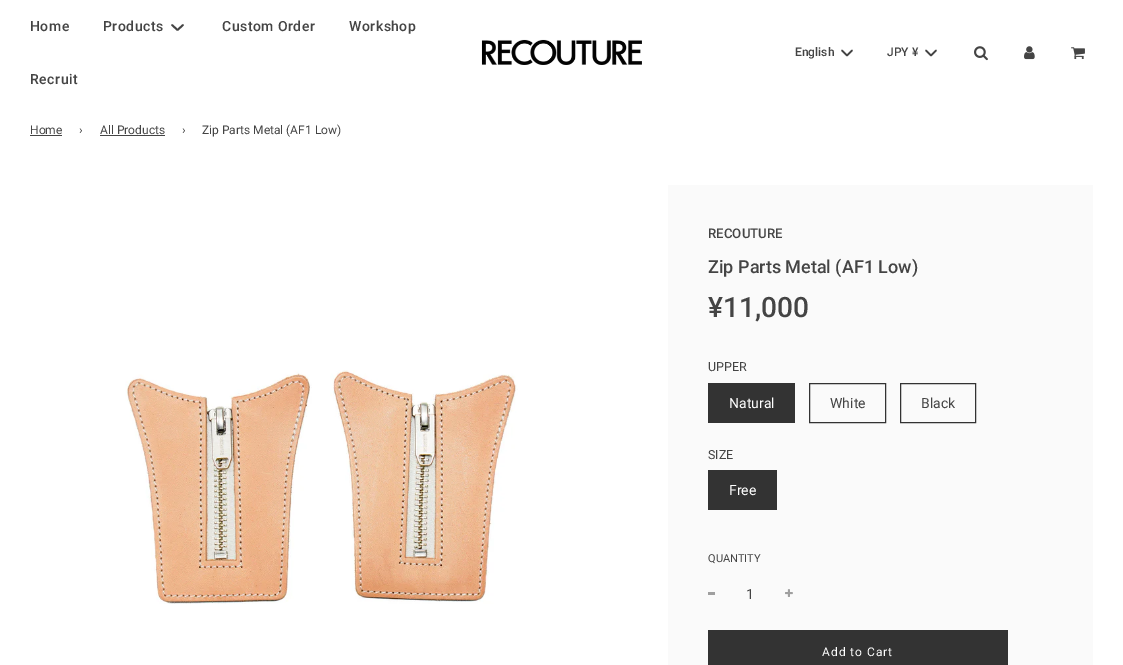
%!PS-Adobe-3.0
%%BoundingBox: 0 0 1123 665
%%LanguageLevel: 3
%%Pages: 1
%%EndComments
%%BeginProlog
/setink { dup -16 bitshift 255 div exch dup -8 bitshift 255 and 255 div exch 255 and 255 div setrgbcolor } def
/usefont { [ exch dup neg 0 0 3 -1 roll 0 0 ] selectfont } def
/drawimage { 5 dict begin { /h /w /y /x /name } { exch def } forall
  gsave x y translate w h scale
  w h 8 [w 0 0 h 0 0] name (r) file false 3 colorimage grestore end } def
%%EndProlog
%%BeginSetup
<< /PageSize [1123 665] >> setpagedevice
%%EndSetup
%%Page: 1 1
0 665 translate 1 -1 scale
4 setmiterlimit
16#FFFFFF setink
0 0 1123 665 rectfill
/Roboto-Medium 14 usefont
16#444444 setink
30 31 moveto 0.5 0 (Home) ashow
103 31 moveto 0.5 0 (Products) ashow
1.8 setlinewidth
1 setlinecap
1 setlinejoin
172 25 moveto 177.5 30 lineto 183 25 lineto stroke
222 31 moveto 0.5 0 (Custom Order) ashow
349 31 moveto 0.5 0 (Workshop) ashow
30 84 moveto 0.5 0 (Recruit) ashow
(img1.raw) 481 39 161 26 drawimage
/Roboto-Medium 12 usefont
795 56 moveto (English) show
1.7 setlinewidth
842 50.5 moveto 847 55.5 lineto 852 50.5 lineto stroke
887 56 moveto (JPY ¥) show
926 50.5 moveto 931 55.5 lineto 936 50.5 lineto stroke
(img2.raw) 974 46 14 15 drawimage
(img3.raw) 1024 46 11 14 drawimage
(img4.raw) 1071 47 14 13 drawimage
/Roboto-Regular 12 usefont
30 134 moveto (Home) show
30 135 32 1 rectfill
79 134 moveto (›) show
100 134 moveto (All Products) show
100 135 65 1 rectfill
182 134 moveto (›) show
202 134 moveto (Zip Parts Metal \(AF1 Low\)) show
(img5.raw) 125 370 393 234 drawimage
16#FAFAFA setink
668 185 425 480 rectfill
/Roboto-Medium 13.25 usefont
16#444444 setink
708 238 moveto (RECOUTURE) show
/Roboto-Medium 18 usefont
708 273 moveto (Zip Parts Metal \(AF1 Low\)) show
/Roboto-Medium 28 usefont
708 317 moveto (¥11,000) show
/Roboto-Regular 12.5 usefont
708 371 moveto (UPPER) show
16#333333 setink
708 383 87 40 rectfill
/Roboto-Regular 14 usefont
16#FFFFFF setink
729 408 moveto (Natural) show
16#333333 setink
1 setlinewidth
0 setlinecap
0 setlinejoin
809.5 383.5 76 39 rectstroke
16#444444 setink
830 408 moveto (White) show
16#333333 setink
900.5 383.5 75 39 rectstroke
16#444444 setink
921 408 moveto (Black) show
/Roboto-Regular 12.5 usefont
708 459 moveto (SIZE) show
16#333333 setink
708 470 69 40 rectfill
/Roboto-Regular 14 usefont
16#FFFFFF setink
729 495 moveto (Free) show
/Roboto-Regular 11 usefont
16#444444 setink
708 562 moveto (QUANTITY) show
16#9F9F9F setink
708 592 7 3 rectfill
/Roboto-Regular 14 usefont
16#444444 setink
746 599 moveto (1) show
(img6.raw) 785 589 8 8 drawimage
16#333333 setink
708 630 300 35 rectfill
/Roboto-Regular 12 usefont
16#FFFFFF setink
822 656 moveto 1 0 (Add to Cart) ashow
showpage
%%EOF
